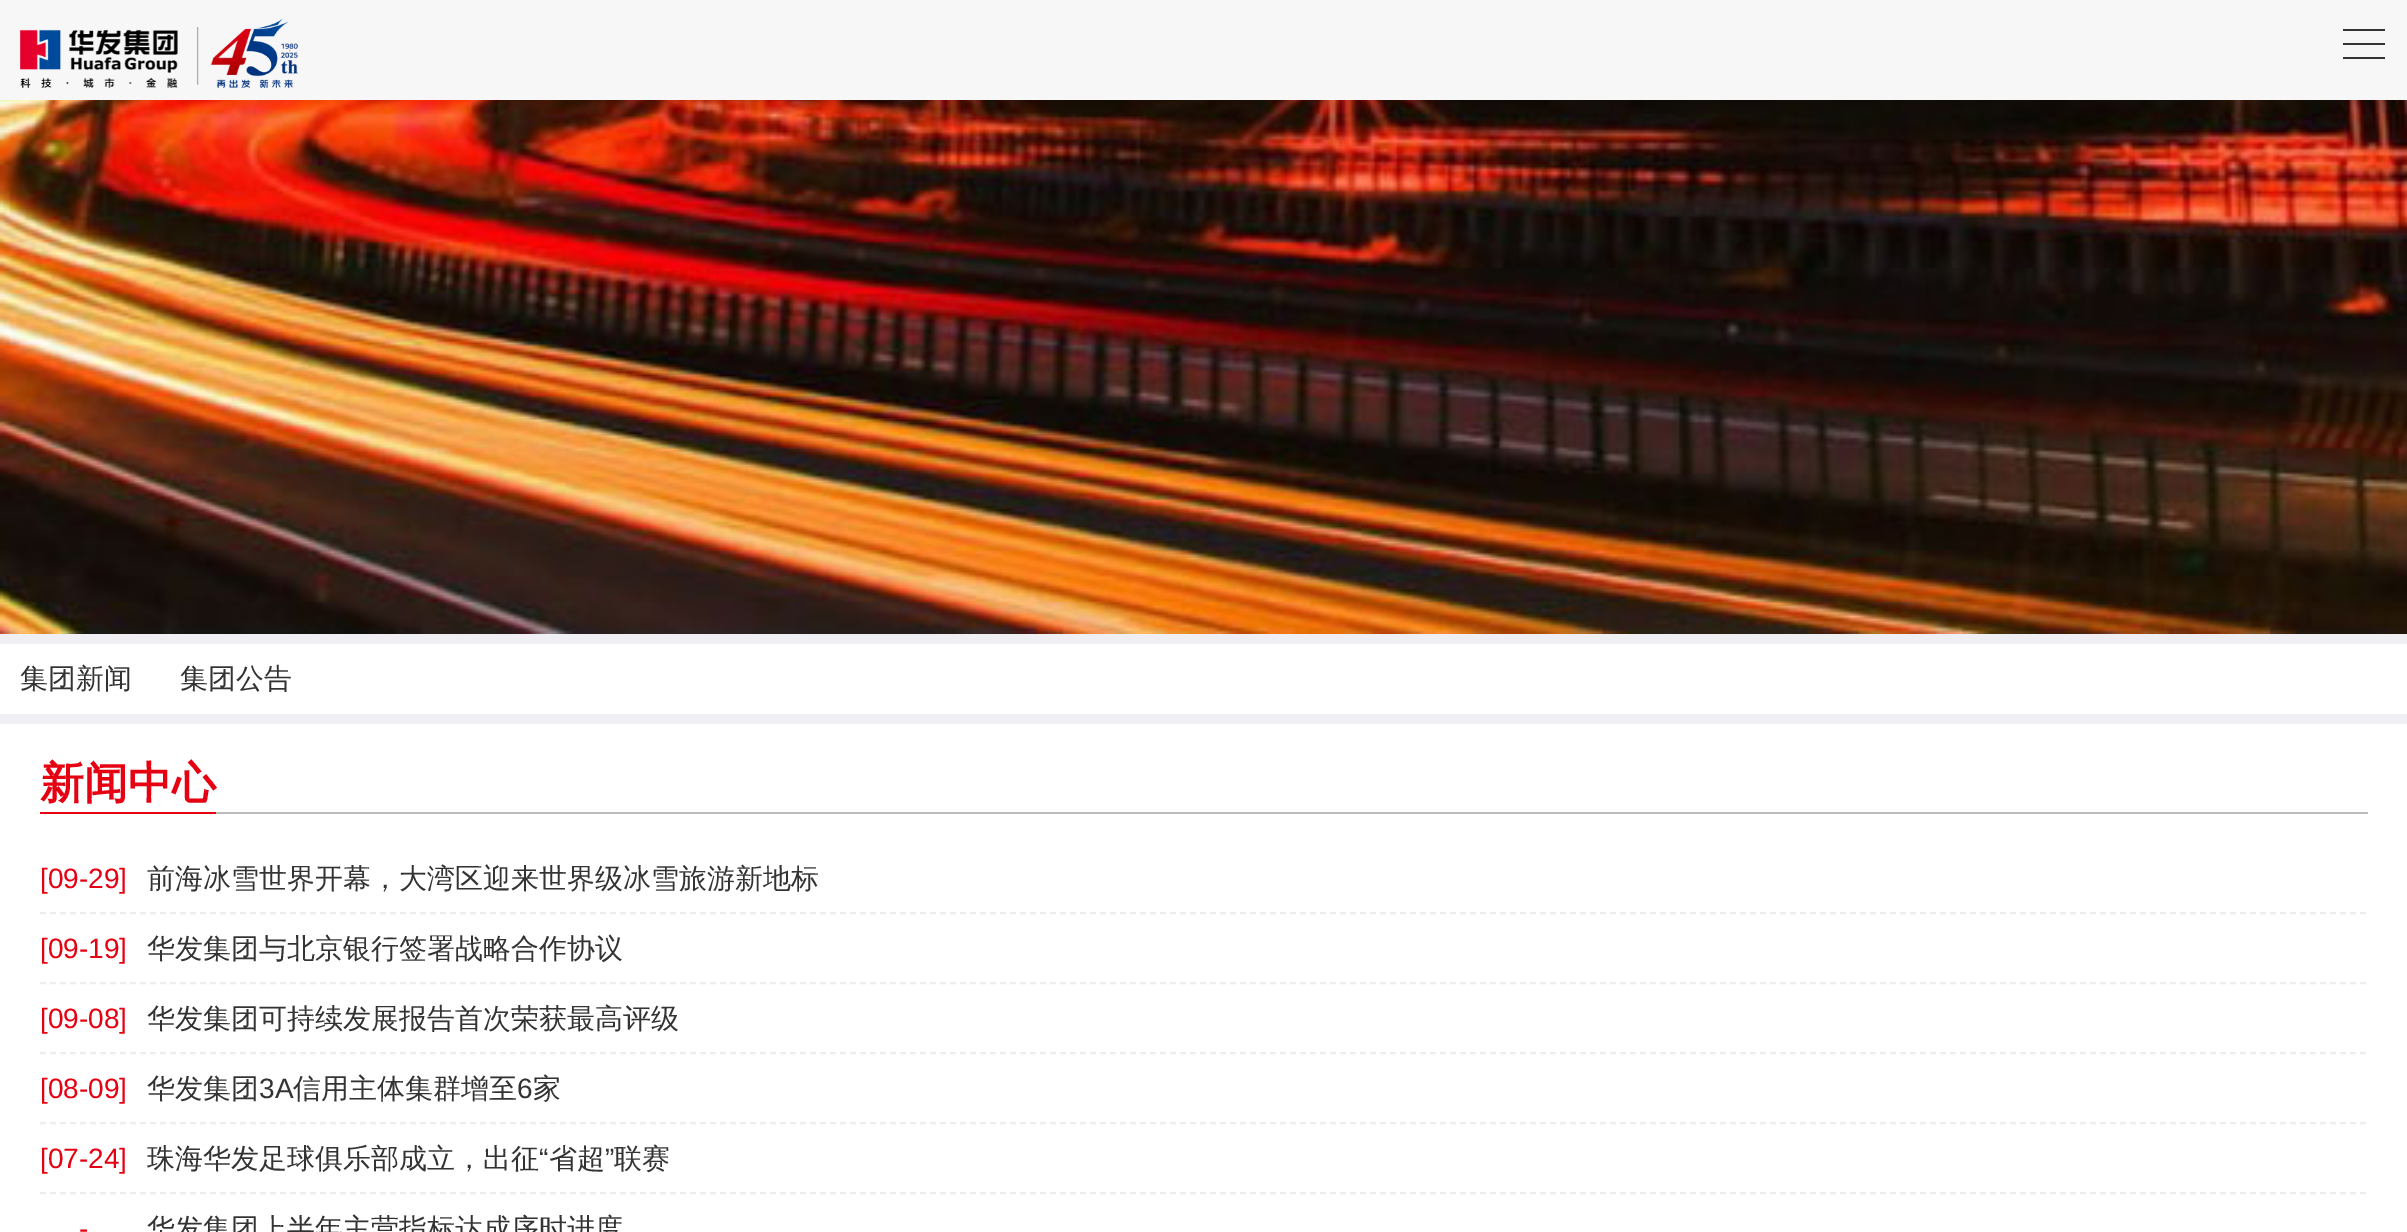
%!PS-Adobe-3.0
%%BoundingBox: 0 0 2407 1232
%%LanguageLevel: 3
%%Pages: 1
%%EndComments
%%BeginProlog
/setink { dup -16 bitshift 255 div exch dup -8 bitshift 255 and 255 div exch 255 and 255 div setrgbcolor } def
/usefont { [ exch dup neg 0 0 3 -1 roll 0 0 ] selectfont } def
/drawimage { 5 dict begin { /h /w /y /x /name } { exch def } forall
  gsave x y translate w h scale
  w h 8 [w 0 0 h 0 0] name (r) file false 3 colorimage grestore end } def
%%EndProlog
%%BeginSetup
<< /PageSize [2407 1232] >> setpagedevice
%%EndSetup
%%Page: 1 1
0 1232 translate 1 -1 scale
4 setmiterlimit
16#EFEFF4 setink
0 0 2407 1232 rectfill
16#F7F7F7 setink
0 0 2407 100 rectfill
(img1.raw) 20 18 278 70 drawimage
16#333333 setink
2343 43 moveto 2385 43 lineto 2385 45 lineto 2343 45 lineto closepath 2343 29 moveto 2385 29 lineto 2385 31 lineto 2343 31 lineto closepath 2343 57 moveto 2385 57 lineto 2385 59 lineto 2343 59 lineto closepath fill
(img2.raw) 0 100 2407 534 drawimage
16#FFFFFF setink
0 644 2407 70 rectfill
/WenQuanYiZenHei-Medium 28 usefont
16#333333 setink
20 688 moveto (集团新闻) show
180 688 moveto (集团公告) show
[
    [0 724 2407 508 16#FFFFFF]
    [216 812 2152 2 16#BBBBBB]
    [40 812 176 2 16#E50012]
] { aload pop setink rectfill } forall
/WenQuanYiZenHei-Bold 44 usefont
40 798 moveto (新闻中心) show
16#EEEEEE setink
2 setlinewidth
[6 4] 0 setdash
40 913 moveto 2368 913 lineto stroke
/LiberationSans-Regular 28 usefont
16#E50012 setink
40 888 moveto ([09-29]) show
/WenQuanYiZenHei-Medium 28 usefont
16#333333 setink
147 888 moveto (前海冰雪世界开幕，大湾区迎来世界级冰雪旅游新地标) show
16#EEEEEE setink
40 983 moveto 2368 983 lineto stroke
/LiberationSans-Regular 28 usefont
16#E50012 setink
40 958 moveto ([09-19]) show
/WenQuanYiZenHei-Medium 28 usefont
16#333333 setink
147 958 moveto (华发集团与北京银行签署战略合作协议) show
16#EEEEEE setink
40 1053 moveto 2368 1053 lineto stroke
/LiberationSans-Regular 28 usefont
16#E50012 setink
40 1028 moveto ([09-08]) show
/WenQuanYiZenHei-Medium 28 usefont
16#333333 setink
147 1028 moveto (华发集团可持续发展报告首次荣获最高评级) show
16#EEEEEE setink
40 1123 moveto 2368 1123 lineto stroke
/LiberationSans-Regular 28 usefont
16#E50012 setink
40 1098 moveto ([08-09]) show
/WenQuanYiZenHei-Medium 28 usefont
16#333333 setink
147 1098 moveto (华发集团) show
/LiberationSans-Regular 28 usefont
259 1098 moveto (3A) show
/WenQuanYiZenHei-Medium 28 usefont
293 1098 moveto (信用主体集群增至) show
/LiberationSans-Regular 28 usefont
517 1098 moveto (6) show
/WenQuanYiZenHei-Medium 28 usefont
533 1098 moveto (家) show
16#EEEEEE setink
40 1193 moveto 2368 1193 lineto stroke
/LiberationSans-Regular 28 usefont
16#E50012 setink
40 1168 moveto ([07-24]) show
/WenQuanYiZenHei-Medium 28 usefont
16#333333 setink
147 1168 moveto (珠海华发足球俱乐部成立，出征) show
/LiberationSans-Regular 28 usefont
539 1168 moveto (“) show
/WenQuanYiZenHei-Medium 28 usefont
549 1168 moveto (省超) show
/LiberationSans-Regular 28 usefont
605 1168 moveto (”) show
/WenQuanYiZenHei-Medium 28 usefont
614 1168 moveto (联赛) show
/LiberationSans-Regular 28 usefont
16#E50012 setink
79 1238 moveto (-) show
/WenQuanYiZenHei-Medium 28 usefont
16#333333 setink
147 1238 moveto (华发集团上半年主营指标达成序时进度) show
showpage
%%EOF
